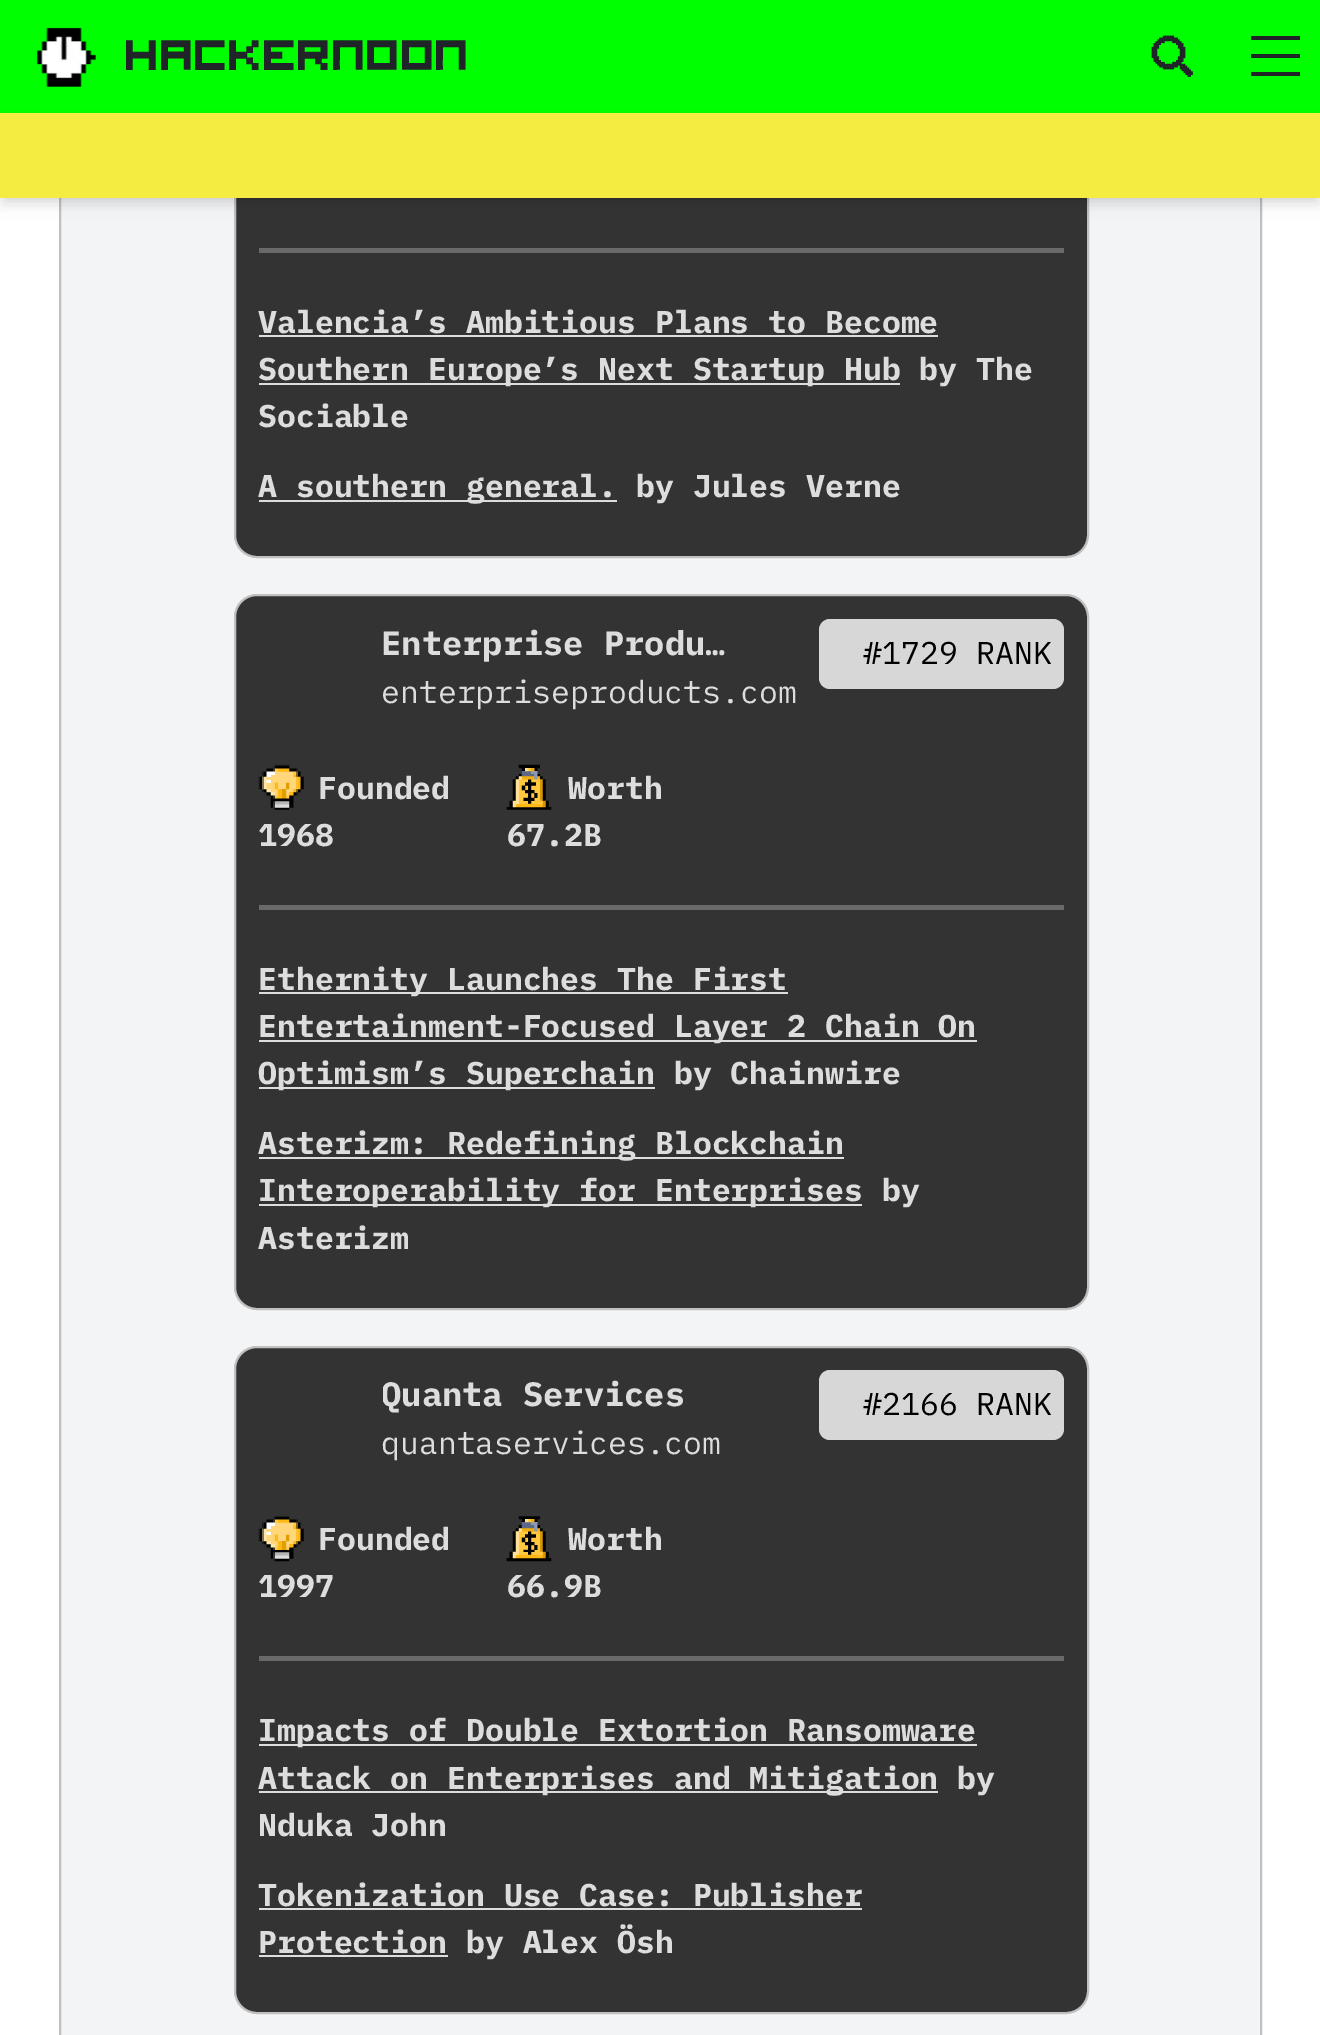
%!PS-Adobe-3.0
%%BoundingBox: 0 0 1320 2035
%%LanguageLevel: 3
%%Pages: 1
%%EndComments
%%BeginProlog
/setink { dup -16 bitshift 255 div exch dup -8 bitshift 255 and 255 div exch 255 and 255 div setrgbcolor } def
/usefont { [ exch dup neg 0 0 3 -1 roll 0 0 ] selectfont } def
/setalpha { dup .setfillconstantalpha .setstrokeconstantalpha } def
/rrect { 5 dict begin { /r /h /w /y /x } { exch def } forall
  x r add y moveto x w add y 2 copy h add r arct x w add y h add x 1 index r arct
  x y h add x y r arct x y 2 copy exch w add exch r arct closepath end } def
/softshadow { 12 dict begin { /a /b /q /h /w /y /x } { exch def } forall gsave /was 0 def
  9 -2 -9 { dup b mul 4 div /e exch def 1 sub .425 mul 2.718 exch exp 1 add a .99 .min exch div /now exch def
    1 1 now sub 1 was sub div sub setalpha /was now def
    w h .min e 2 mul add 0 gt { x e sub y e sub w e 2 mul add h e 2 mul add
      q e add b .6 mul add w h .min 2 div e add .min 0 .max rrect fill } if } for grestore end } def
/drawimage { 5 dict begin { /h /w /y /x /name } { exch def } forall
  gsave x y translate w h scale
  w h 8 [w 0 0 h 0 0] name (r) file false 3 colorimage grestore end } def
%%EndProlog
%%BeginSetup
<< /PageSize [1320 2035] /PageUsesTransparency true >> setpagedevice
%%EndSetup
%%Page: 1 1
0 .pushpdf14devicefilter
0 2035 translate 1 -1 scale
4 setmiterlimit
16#FFFFFF setink
0 0 1320 2035 rectfill
16#F3F4F6 setink
61 198 1199 1837 rectfill
16#C0C0C0 setink
2 setlinewidth
60 -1 1201 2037 rectstroke
16#333333 setink
235 -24 853 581 22 rrect gsave fill grestore
16#C0C0C0 setink
stroke
16#00FF00 setink
0 0 1320 113 rectfill
(img1.raw) 36 27 60 60 drawimage
/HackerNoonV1-Bold 40.5 usefont
16#202327 setink
124 66 moveto 2 0 (Hackernoon) ashow
(img2.raw) 1151 35 42 42 drawimage
1251 54 moveto 1300 54 lineto 1300 58 lineto 1251 58 lineto closepath 1251 72 moveto 1300 72 lineto 1300 76 lineto 1251 76 lineto closepath 1251 36 moveto 1300 36 lineto 1300 40 lineto 1251 40 lineto closepath fill
16#000000 setink
5 122 1311 76 0 4.5 0.1 softshadow
2 124 1317 81 0 7 0.1 softshadow
16#F5EC42 setink
0 113 1320 85 rectfill
16#6A6A6A setink
259 248 805 5 rectfill
/IBMPlexMono-Bold 31.5 usefont
16#DDDDDD setink
258 333 moveto (Valencia’s Ambitious Plans to Become) show
259 335 679 2 rectfill
259 383 641 2 rectfill
258 380 moveto (Southern Europe’s Next Startup Hub by The) show
258 427 moveto (Sociable) show
259 500 358 2 rectfill
258 497 moveto (A southern general. by Jules Verne) show
16#333333 setink
235 595 853 714 22 rrect gsave fill grestore
16#C0C0C0 setink
stroke
/IBMPlexMono-Bold 33.75 usefont
16#DDDDDD setink
381 655 moveto (Enterprise Produ…) show
/IBMPlexMono-Regular 31.5 usefont
381 703 moveto (enterpriseproducts.com) show
16#D7D7D7 setink
819 619 245 70 11 rrect fill
16#000000 setink
863 664 moveto (#1729 RANK) show
(img3.raw) 258 764 46 46 drawimage
/IBMPlexMono-Bold 31.5 usefont
16#DDDDDD setink
318 799 moveto (Founded) show
258 846 moveto (1968) show
(img4.raw) 506 764 46 46 drawimage
568 799 moveto (Worth) show
507 846 moveto (67.2B) show
16#6A6A6A setink
259 905 805 5 rectfill
16#DDDDDD setink
259 992 529 2 rectfill
258 990 moveto (Ethernity Launches The First) show
259 1040 718 2 rectfill
258 1037 moveto (Entertainment-Focused Layer 2 Chain On) show
259 1087 396 2 rectfill
258 1084 moveto (Optimism’s Superchain by Chainwire) show
259 1157 585 2 rectfill
258 1154 moveto (Asterizm: Redefining Blockchain) show
259 1204 603 2 rectfill
258 1201 moveto (Interoperability for Enterprises by) show
258 1249 moveto (Asterizm) show
16#333333 setink
235 1347 853 666 22 rrect gsave fill grestore
16#C0C0C0 setink
stroke
gsave
383 1370 360 50 rectclip
/IBMPlexMono-Bold 33.75 usefont
16#DDDDDD setink
381 1406 moveto (Quanta Services) show
grestore
/IBMPlexMono-Regular 31.5 usefont
16#DDDDDD setink
381 1454 moveto (quantaservices.com) show
16#D7D7D7 setink
819 1370 245 70 11 rrect fill
16#000000 setink
863 1415 moveto (#2166 RANK) show
(img5.raw) 258 1516 46 46 drawimage
/IBMPlexMono-Bold 31.5 usefont
16#DDDDDD setink
318 1550 moveto (Founded) show
258 1597 moveto (1997) show
(img6.raw) 506 1516 46 46 drawimage
568 1550 moveto (Worth) show
507 1597 moveto (66.9B) show
16#6A6A6A setink
259 1656 805 5 rectfill
16#DDDDDD setink
259 1744 718 2 rectfill
258 1741 moveto (Impacts of Double Extortion Ransomware) show
259 1791 679 2 rectfill
[
    [(Attack on Enterprises and Mitigation by) 258 1789]
    [(Nduka John) 258 1836]
    [(Tokenization Use Case: Publisher) 258 1906]
] { aload pop moveto show } forall
259 1908 603 2 rectfill
259 1955 189 2 rectfill
258 1953 moveto (Protection by Alex Ösh) show
.poppdf14devicefilter showpage
%%EOF
